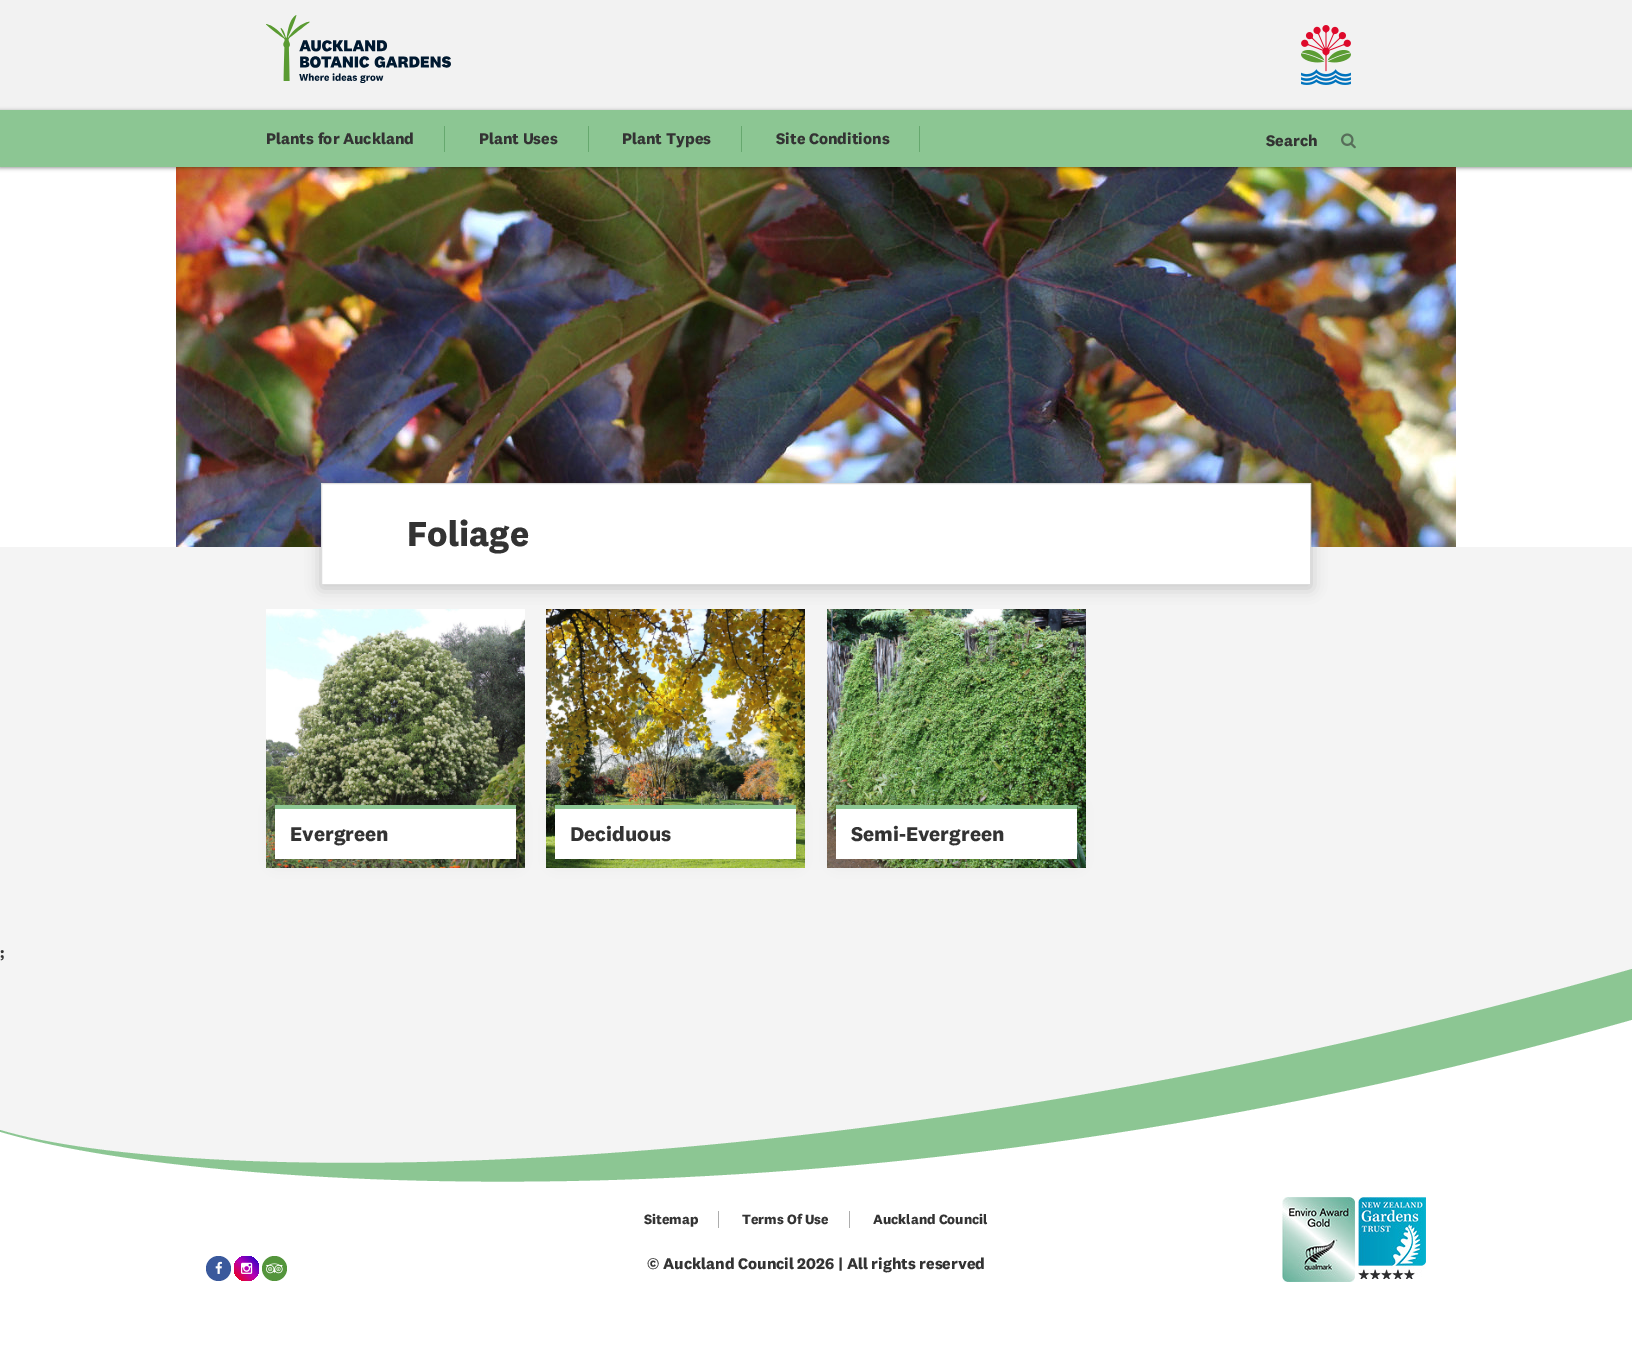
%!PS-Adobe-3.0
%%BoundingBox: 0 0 1632 1354
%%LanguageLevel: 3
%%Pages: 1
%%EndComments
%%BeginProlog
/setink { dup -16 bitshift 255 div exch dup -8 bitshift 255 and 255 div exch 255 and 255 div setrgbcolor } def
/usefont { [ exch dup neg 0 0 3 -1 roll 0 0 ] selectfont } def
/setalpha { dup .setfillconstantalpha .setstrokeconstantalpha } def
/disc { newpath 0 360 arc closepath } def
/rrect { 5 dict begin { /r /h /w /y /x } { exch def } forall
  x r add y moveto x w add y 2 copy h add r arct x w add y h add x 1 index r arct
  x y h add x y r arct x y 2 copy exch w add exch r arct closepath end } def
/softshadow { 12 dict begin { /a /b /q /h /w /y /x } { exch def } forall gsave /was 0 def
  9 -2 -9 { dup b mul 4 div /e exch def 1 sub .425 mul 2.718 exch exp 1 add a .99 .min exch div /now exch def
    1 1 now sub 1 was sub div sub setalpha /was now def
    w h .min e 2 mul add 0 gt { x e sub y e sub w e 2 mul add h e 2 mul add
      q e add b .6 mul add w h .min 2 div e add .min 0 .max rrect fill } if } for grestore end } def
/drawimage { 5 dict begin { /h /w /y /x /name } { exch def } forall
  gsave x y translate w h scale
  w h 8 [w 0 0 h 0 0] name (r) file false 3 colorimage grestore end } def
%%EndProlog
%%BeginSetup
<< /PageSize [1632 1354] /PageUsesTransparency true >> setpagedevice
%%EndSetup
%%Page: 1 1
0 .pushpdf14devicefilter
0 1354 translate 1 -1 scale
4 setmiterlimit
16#FFFFFF setink
0 0 1632 1354 rectfill
16#F2F2F2 setink
0 0 1632 110 rectfill
(img1.raw) 266 15 185 68 drawimage
(img2.raw) 1301 25 50 60 drawimage
(img4.raw) 176 167 1280 380 drawimage
16#000000 setink
0 111 1632 57 0 2 0.4 softshadow
16#8CC693 setink
0 110 1632 57 rectfill
16#66A86E setink
444 126 1 26 rectfill
/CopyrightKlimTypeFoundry-Bold 16 usefont
16#333333 setink
266 144 moveto (Plants for Auckland) show
16#66A86E setink
588 126 1 26 rectfill
16#333333 setink
479 144 moveto (Plant Uses) show
16#66A86E setink
741 126 1 26 rectfill
16#333333 setink
622 144 moveto (Plant Types) show
16#66A86E setink
919 126 1 26 rectfill
16#333333 setink
776 144 moveto (Site Conditions) show
1266 146 moveto (Search) show
(img3.raw) 1341 133 15 16 drawimage
16#F4F4F4 setink
0 547 1632 616 rectfill
(img5.raw) 266 609 259 259 drawimage
(img6.raw) 546 609 259 259 drawimage
(img7.raw) 827 609 259 259 drawimage
16#000000 setink
321 486 990 102 0 7.5 0.2 softshadow
16#FFFFFF setink
321.5 483.5 moveto 1310.5 483.5 lineto 1310.5 584.5 lineto 321.5 584.5 lineto closepath gsave fill grestore
16#DCDCDC setink
stroke
/CopyrightKlimTypeFoundry-Bold 36 usefont
16#333333 setink
407 546 moveto (Foliage) show
16#000000 setink
275 808 241 54 0 7.5 0.1 softshadow
16#FFFFFF setink
275 809 241 50 rectfill
16#8CC693 setink
275 805 241 4 rectfill
/CopyrightKlimTypeFoundry-Bold 20.75 usefont
16#333333 setink
290 841 moveto (Evergreen) show
16#000000 setink
555 808 241 54 0 7.5 0.1 softshadow
16#FFFFFF setink
555 809 241 50 rectfill
16#8CC693 setink
555 805 241 4 rectfill
16#333333 setink
570 841 moveto (Deciduous) show
16#000000 setink
836 808 241 54 0 7.5 0.1 softshadow
16#FFFFFF setink
836 809 241 50 rectfill
16#8CC693 setink
836 805 241 4 rectfill
16#333333 setink
851 841 moveto (Semi-Evergreen) show
/CopyrightKlimTypeFoundry-Bold 16 usefont
0 958 moveto (;) show
16#8CC693 setink
1632 969 moveto 856 1191 189 1187 0 1130 curveto 0 1182 lineto 1632 1182 lineto closepath fill
gsave
0 966 1632 216 rectclip
16#FFFFFF setink
1632 1020 moveto 856 1242 189 1189 0 1132 curveto 0 1183 lineto 1632 1183 lineto closepath fill
grestore
16#3A599C setink
218.5 1268.5 12.5 disc fill
(img8.raw) 215 1261 7 13 drawimage
gsave 246.5 1268.5 12.5 disc clip newpath
<< /ShadingType 2 /ColorSpace /DeviceRGB /Coords [259 1256 234 1281] /Extend [true true] /Function << /FunctionType 3 /Domain [0 1] /Functions [<< /FunctionType 2 /Domain [0 1] /C0 [0.078 0 0.784] /C1 [0.725 0 0.706] /N 1 >> << /FunctionType 2 /Domain [0 1] /C0 [0.725 0 0.706] /C1 [0.961 0 0] /N 1 >>] /Bounds [0.5] /Encode [0 1 0 1] >> >> shfill grestore
(img9.raw) 241 1262 12 12 drawimage
16#54953C setink
274.5 1268.5 12.5 disc fill
(img10.raw) 266 1263 17 11 drawimage
16#ADADAD setink
718 1211 1 17 rectfill
/CopyrightKlimTypeFoundry-Bold 14 usefont
16#333333 setink
644 1224 moveto (Sitemap) show
16#ADADAD setink
849 1211 1 17 rectfill
16#333333 setink
742 1224 moveto (Terms Of Use) show
873 1224 moveto (Auckland Council) show
/CopyrightKlimTypeFoundry-Bold 16 usefont
647 1269 moveto (© Auckland Council 2026 | All rights reserved) show
(img11.raw) 1282 1197 73 85 drawimage
(img12.raw) 1358 1197 68 82 drawimage
.poppdf14devicefilter showpage
%%EOF
